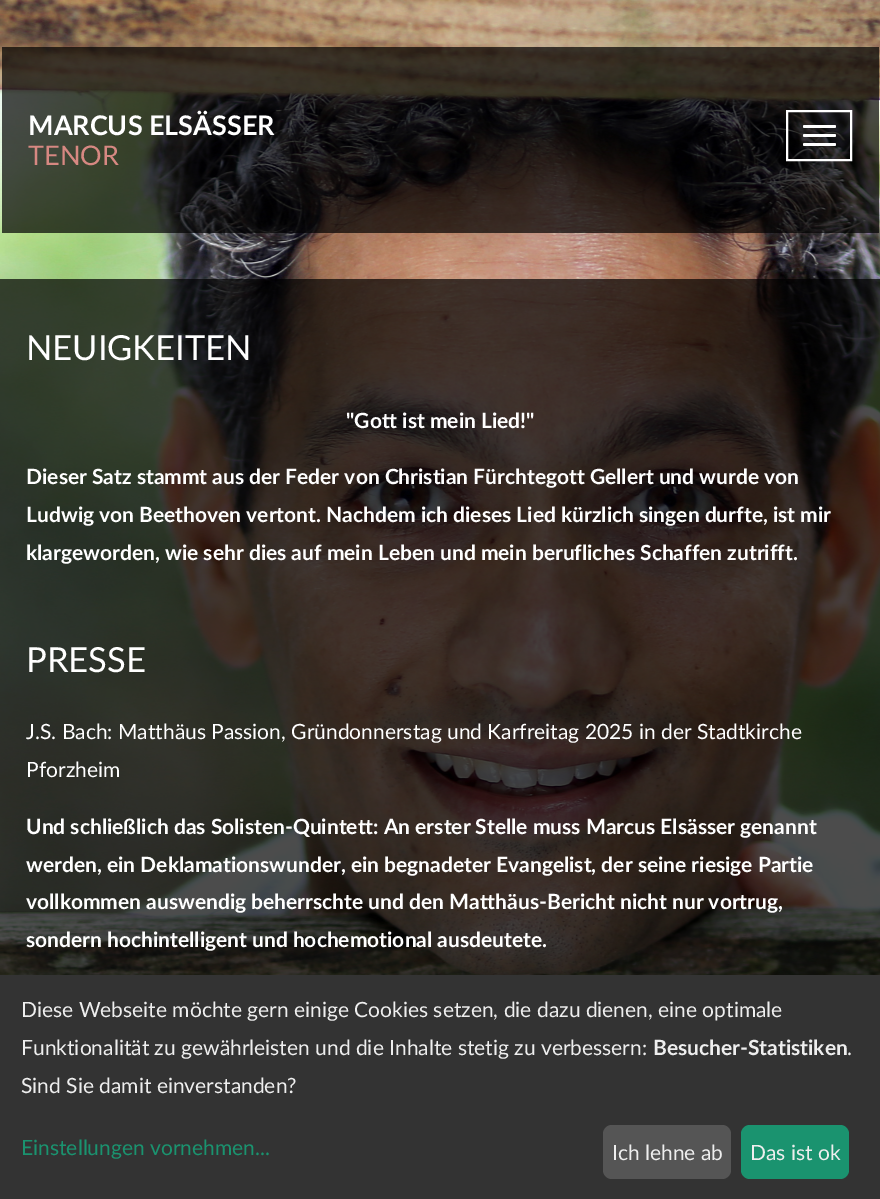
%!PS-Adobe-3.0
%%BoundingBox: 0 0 880 1199
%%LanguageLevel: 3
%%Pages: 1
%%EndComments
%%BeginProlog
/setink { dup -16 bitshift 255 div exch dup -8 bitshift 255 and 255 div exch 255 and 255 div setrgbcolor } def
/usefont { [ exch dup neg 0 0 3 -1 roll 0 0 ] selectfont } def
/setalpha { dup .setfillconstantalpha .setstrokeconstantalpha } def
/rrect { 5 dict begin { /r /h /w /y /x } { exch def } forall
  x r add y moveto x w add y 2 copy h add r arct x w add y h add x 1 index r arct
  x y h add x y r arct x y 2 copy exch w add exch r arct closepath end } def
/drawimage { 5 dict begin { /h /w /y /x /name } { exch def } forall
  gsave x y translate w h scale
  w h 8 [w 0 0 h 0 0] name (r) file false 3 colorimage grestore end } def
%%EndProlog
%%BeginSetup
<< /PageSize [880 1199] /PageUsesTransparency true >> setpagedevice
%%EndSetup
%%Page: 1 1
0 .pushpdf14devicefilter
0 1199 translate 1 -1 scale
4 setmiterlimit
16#FFFFFF setink
0 0 880 1199 rectfill
(img1.raw) 0 0 880 975 drawimage
0.7 setalpha
16#000000 setink
2 47 877 186 rectfill
/Lato-Bold 27 usefont
1 setalpha
16#FFFFFF setink
28 135 moveto (MARCUS ELSÄSSER) show
/Lato-Regular 27 usefont
16#D78882 setink
28 165 moveto (TENOR) show
16#FFFFFF setink
2 setlinewidth
787 111 64 49 rectstroke
803 125 33 3 1.5 rrect fill
803 134 33 3 1.5 rrect fill
803 143 33 3 1.5 rrect fill
0.7 setalpha
16#000000 setink
0 279 880 696 rectfill
/Lato-Regular 34.5 usefont
1 setalpha
16#FFFFFF setink
26 360 moveto (NEUIGKEITEN) show
/Lato-Bold 21 usefont
[
    [("Gott ist mein Lied!") 346 428]
    [(Dieser Satz stammt aus der Feder von Christian Fürchtegott Gellert und wurde von) 26 484]
    [(Ludwig von Beethoven vertont. Nachdem ich dieses Lied kürzlich singen durfte, ist mir) 26 522]
    [(klargeworden, wie sehr dies auf mein Leben und mein berufliches Schaffen zutrifft.) 26 560]
] { aload pop moveto show } forall
/Lato-Regular 34.5 usefont
26 672 moveto (PRESSE) show
/Lato-Regular 21 usefont
26 739 moveto (J.S. Bach: Matthäus Passion, Gründonnerstag und Karfreitag 2025 in der Stadtkirche) show
26 777 moveto (Pforzheim) show
/Lato-Bold 21 usefont
[
    [(Und schließlich das Solisten-Quintett: An erster Stelle muss Marcus Elsässer genannt) 26 834]
    [(werden, ein Deklamationswunder, ein begnadeter Evangelist, der seine riesige Partie) 26 872]
    [(vollkommen auswendig beherrschte und den Matthäus-Bericht nicht nur vortrug,) 26 909]
    [(sondern hochintelligent und hochemotional ausdeutete.) 26 947]
] { aload pop moveto show } forall
16#333333 setink
0 975 880 224 rectfill
/Lato-Regular 21 usefont
16#EEEEEE setink
21 1017 moveto (Diese Webseite möchte gern einige Cookies setzen, die dazu dienen, eine optimale) show
21 1055 moveto (Funktionalität zu gewährleisten und die Inhalte stetig zu verbessern:) show
/Lato-Bold 21 usefont
653 1055 moveto (Besucher-Statistiken) show
/Lato-Regular 21 usefont
847 1055 moveto (.) show
21 1093 moveto (Sind Sie damit einverstanden?) show
16#1A936F setink
21 1155 moveto (Einstellungen vornehmen...) show
16#555555 setink
603 1125 128 54 9 rrect fill
16#EEEEEE setink
612 1160 moveto (Ich lehne ab) show
16#1A936F setink
741 1125 108 54 9 rrect fill
16#EEEEEE setink
750 1160 moveto (Das ist ok) show
.poppdf14devicefilter showpage
%%EOF
